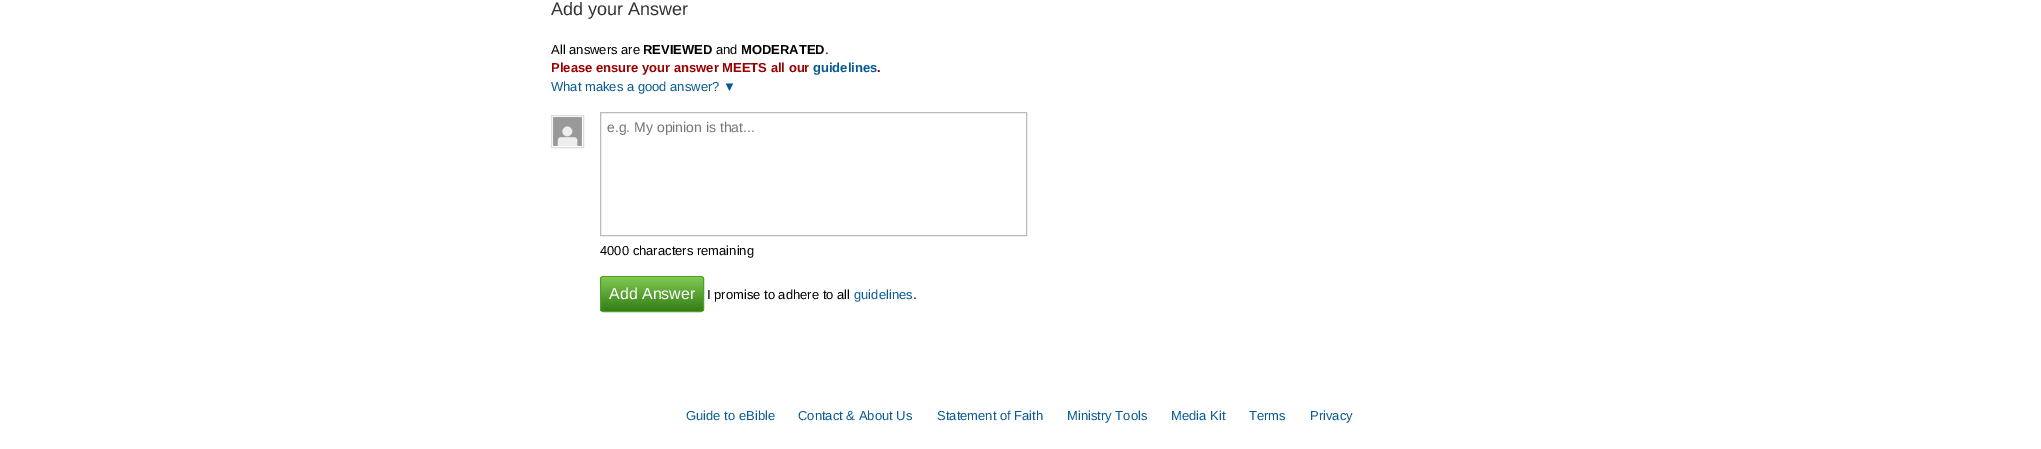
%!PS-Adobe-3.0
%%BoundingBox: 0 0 2041 449
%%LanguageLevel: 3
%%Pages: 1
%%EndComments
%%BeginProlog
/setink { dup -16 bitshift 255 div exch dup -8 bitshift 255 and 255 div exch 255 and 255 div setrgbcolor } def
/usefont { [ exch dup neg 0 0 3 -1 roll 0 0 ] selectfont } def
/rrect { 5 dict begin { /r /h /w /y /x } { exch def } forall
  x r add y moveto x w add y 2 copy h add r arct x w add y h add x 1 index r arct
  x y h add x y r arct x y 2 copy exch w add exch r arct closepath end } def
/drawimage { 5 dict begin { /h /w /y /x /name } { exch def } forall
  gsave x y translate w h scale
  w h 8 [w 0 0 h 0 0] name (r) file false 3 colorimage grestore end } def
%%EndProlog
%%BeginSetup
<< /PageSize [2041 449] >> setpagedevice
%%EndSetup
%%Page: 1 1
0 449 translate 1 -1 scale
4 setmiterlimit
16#FFFFFF setink
0 0 2041 449 rectfill
/LiberationSans-Regular 18 usefont
16#333333 setink
551 15 moveto (Add your Answer) show
/LiberationSans-Regular 13 usefont
16#000000 setink
551 54 moveto (All answers are) show
/LiberationSans-Bold 13 usefont
643 54 moveto (REVIEWED) show
/LiberationSans-Regular 13 usefont
716 54 moveto (and) show
/LiberationSans-Bold 13 usefont
741 54 moveto (MODERATED) show
/LiberationSans-Regular 13 usefont
825 54 moveto (.) show
/LiberationSans-Bold 13 usefont
16#990000 setink
551 72 moveto (Please ensure your answer MEETS all our) show
16#075B95 setink
813 72 moveto (guidelines) show
16#990000 setink
877 72 moveto (.) show
/LiberationSans-Regular 13 usefont
16#075B95 setink
551 91 moveto (What makes a good answer? ▼) show
16#DDDDDD setink
551.5 115.5 32 32 rectstroke
(img1.raw) 553 117 29 29 drawimage
16#BBBBBB setink
600.5 112.5 426 123 rectstroke
/LiberationSans-Regular 14 usefont
16#757575 setink
607 132 moveto (e.g. My opinion is that...) show
/LiberationSans-Regular 13 usefont
16#000000 setink
600 255 moveto (4000 characters remaining) show
gsave
600 276 104 36 3 rrect clip newpath
gsave 600 277 moveto 704 277 lineto 704 311 lineto 600 311 lineto closepath clip newpath
<< /ShadingType 2 /ColorSpace /DeviceRGB /Coords [652 311 652 277] /Extend [true true] /Function << /FunctionType 3 /Domain [0 1] /Functions [<< /FunctionType 2 /Domain [0 1] /C0 [0.208 0.49 0.086] /C1 [0.208 0.49 0.086] /N 1 >> << /FunctionType 2 /Domain [0 1] /C0 [0.208 0.49 0.086] /C1 [0.49 0.78 0.314] /N 1 >> << /FunctionType 2 /Domain [0 1] /C0 [0.49 0.78 0.314] /C1 [0.62 0.835 0.341] /N 1 >> << /FunctionType 2 /Domain [0 1] /C0 [0.62 0.835 0.341] /C1 [0.62 0.835 0.341] /N 1 >>] /Bounds [0.01 0.96 0.97] /Encode [0 1 0 1 0 1 0 1] >> >> shfill grestore
grestore
16#4EA229 setink
600.5 276.5 103 35 2.5 rrect stroke
/LiberationSans-Regular 16 usefont
16#FFFFFF setink
609 299 moveto (Add Answer) show
/LiberationSans-Regular 13 usefont
16#000000 setink
707 299 moveto (I promise to adhere to all) show
16#075B95 setink
854 299 moveto (guidelines) show
16#000000 setink
913 299 moveto (.) show
16#075B95 setink
[
    [(Guide to eBible) 686 420]
    [(Contact & About Us) 798 420]
    [(Statement of Faith) 937 420]
    [(Ministry Tools) 1067 420]
    [(Media Kit) 1171 420]
    [(Terms) 1249 420]
    [(Privacy) 1310 420]
] { aload pop moveto show } forall
showpage
%%EOF
